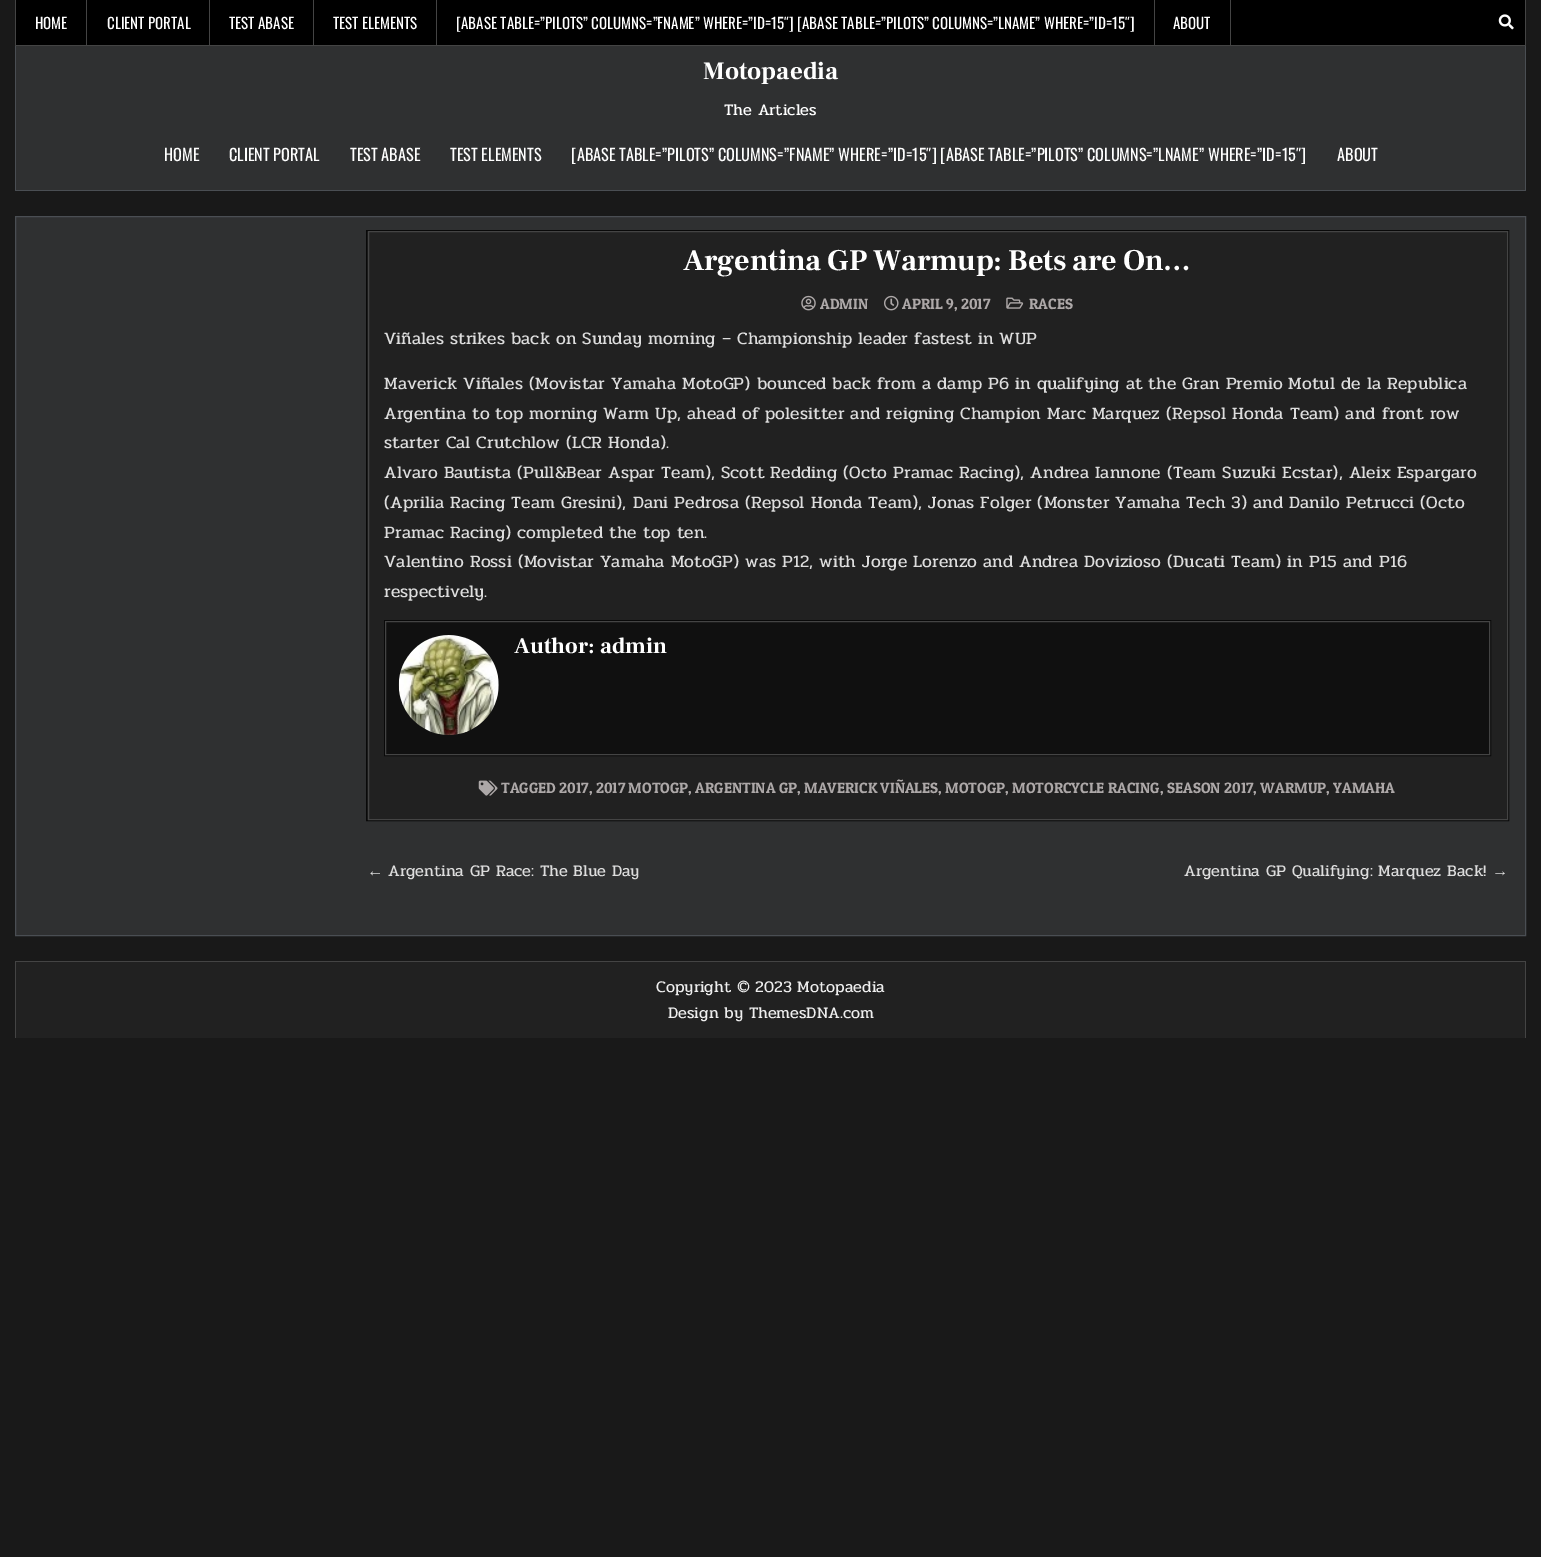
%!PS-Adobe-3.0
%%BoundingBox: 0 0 1541 1557
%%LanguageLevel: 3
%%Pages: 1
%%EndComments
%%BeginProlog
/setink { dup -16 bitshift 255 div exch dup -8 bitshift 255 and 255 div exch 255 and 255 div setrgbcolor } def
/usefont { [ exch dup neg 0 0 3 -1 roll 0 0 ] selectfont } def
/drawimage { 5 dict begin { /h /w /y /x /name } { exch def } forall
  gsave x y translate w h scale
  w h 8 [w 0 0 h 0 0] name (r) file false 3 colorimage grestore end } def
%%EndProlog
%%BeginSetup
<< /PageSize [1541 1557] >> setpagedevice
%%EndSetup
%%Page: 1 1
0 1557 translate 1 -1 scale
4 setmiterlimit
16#191919 setink
0 0 1541 1557 rectfill
[
    [16 0 1509 45 16#000000]
    [1525 0 1 46 16#444444]
    [15 45 1511 1 16#444444]
    [15 0 1 46 16#444444]
    [86 0 1 45 16#444444]
] { aload pop setink rectfill } forall
/Oswald-Regular 15 usefont
16#FFFFFF setink
35 29 moveto (HOME) show
16#444444 setink
209 0 1 45 rectfill
16#FFFFFF setink
107 29 moveto (CLIENT PORTAL) show
16#444444 setink
313 0 1 45 rectfill
16#FFFFFF setink
229 29 moveto (TEST ABASE) show
16#444444 setink
436 0 1 45 rectfill
16#FFFFFF setink
333 29 moveto (TEST ELEMENTS) show
16#444444 setink
1154 0 1 45 rectfill
16#FFFFFF setink
456 29 moveto ([ABASE TABLE=”PILOTS” COLUMNS=”FNAME” WHERE=”ID=15″] [ABASE TABLE=”PILOTS” COLUMNS=”LNAME” WHERE=”ID=15″]) show
16#444444 setink
1230 0 1 45 rectfill
16#FFFFFF setink
1173 29 moveto (ABOUT) show
(img1.raw) 1498 14 16 16 drawimage
[
    [16 46 1509 144 16#2F3031]
    [1525 46 1 145 16#4A4E53]
    [15 190 1511 1 16#4A4E53]
    [15 46 1 145 16#4A4E53]
] { aload pop setink rectfill } forall
/FrankRuhlLibre-Bold 25 usefont
16#FFFFFF setink
703 79 moveto (Motopaedia) show
/Pridi-Regular 16.25 usefont
724 115 moveto (The Articles) show
/Oswald-Regular 16.25 usefont
[
    [(HOME) 164 161]
    [(CLIENT PORTAL) 229 161]
    [(TEST ABASE) 350 161]
    [(TEST ELEMENTS) 450 161]
    [([ABASE TABLE=”PILOTS” COLUMNS=”FNAME” WHERE=”ID=15″] [ABASE TABLE=”PILOTS” COLUMNS=”LNAME” WHERE=”ID=15″]) 571 161]
    [(ABOUT) 1337 161]
] { aload pop moveto show } forall
16#2F3031 setink
15.5 216.5 moveto 1525.5 216.5 lineto 1525.5 935.5 lineto 15.5 935.5 lineto closepath gsave fill grestore
16#4A4E53 setink
stroke
16#212121 setink
367 231 1140 589 rectfill
16#090909 setink
366.5 230.5 1142 590 rectstroke
16#444444 setink
368.5 231.5 1139 588 rectstroke
/FrankRuhlLibre-Bold 30 usefont
16#FFFFFF setink
683 270 moveto -0.25 0 (Argentina GP Warmup: Bets are On…) ashow
(img2.raw) 801 295 15 16 drawimage
/PatuaOne-Regular 15 usefont
16#ADA8A8 setink
820 309 moveto (ADMIN) show
(img3.raw) 884 295 15 16 drawimage
902 309 moveto (APRIL 9, 2017) show
(img4.raw) 1006 297 18 12 drawimage
1029 309 moveto (RACES) show
/Pridi-Regular 17.5 usefont
16#DDDDDD setink
[
    [(Viñales strikes back on Sunday morning – Championship leader fastest in WUP) 384 344]
    [(Maverick Viñales \(Movistar Yamaha MotoGP\) bounced back from a damp P6 in qualifying at the Gran Premio Motul de la Republica) 384 389]
    [(Argentina to top morning Warm Up, ahead of polesitter and reigning Champion Marc Marquez \(Repsol Honda Team\) and front row) 384 419]
    [(starter Cal Crutchlow \(LCR Honda\).) 384 448]
    [(Alvaro Bautista \(Pull&Bear Aspar Team\), Scott Redding \(Octo Pramac Racing\), Andrea Iannone \(Team Suzuki Ecstar\), Aleix Espargaro) 384 478]
    [(\(Aprilia Racing Team Gresini\), Dani Pedrosa \(Repsol Honda Team\), Jonas Folger \(Monster Yamaha Tech 3\) and Danilo Petrucci \(Octo) 384 508]
    [(Pramac Racing\) completed the top ten.) 384 538]
    [(Valentino Rossi \(Movistar Yamaha MotoGP\) was P12, with Jorge Lorenzo and Andrea Dovizioso \(Ducati Team\) in P15 and P16) 384 567]
    [(respectively.) 384 597]
] { aload pop moveto show } forall
16#101010 setink
386 622 1103 132 rectfill
16#090909 setink
384.5 620.5 1106 135 rectstroke
16#444444 setink
385.5 621.5 1104 133 rectstroke
(img5.raw) 398 635 101 100 drawimage
/FrankRuhlLibre-Bold 22.5 usefont
16#FFFFFF setink
514 653 moveto (Author: admin) show
(img6.raw) 478 780 20 16 drawimage
/PatuaOne-Regular 15 usefont
16#ADA8A8 setink
501 793 moveto (TAGGED 2017, 2017 MOTOGP, ARGENTINA GP, MAVERICK VIÑALES, MOTOGP, MOTORCYCLE RACING, SEASON 2017, WARMUP, YAMAHA) show
/LiberationSans-Regular 16.25 usefont
16#DDDDDD setink
367 876 moveto (←) show
/Pridi-Regular 16.25 usefont
388 876 moveto (Argentina GP Race: The Blue Day) show
1184 876 moveto (Argentina GP Qualifying: Marquez Back!) show
/LiberationSans-Regular 16.25 usefont
1492 876 moveto (→) show
[
    [16 962 1509 76 16#212121]
    [15 961 1511 1 16#444444]
    [1525 961 1 77 16#444444]
    [15 961 1 77 16#444444]
] { aload pop setink rectfill } forall
/Pridi-Regular 16.25 usefont
16#EEEEEE setink
656 992 moveto (Copyright © 2023 Motopaedia) show
668 1018 moveto (Design by ThemesDNA.com) show
showpage
%%EOF
